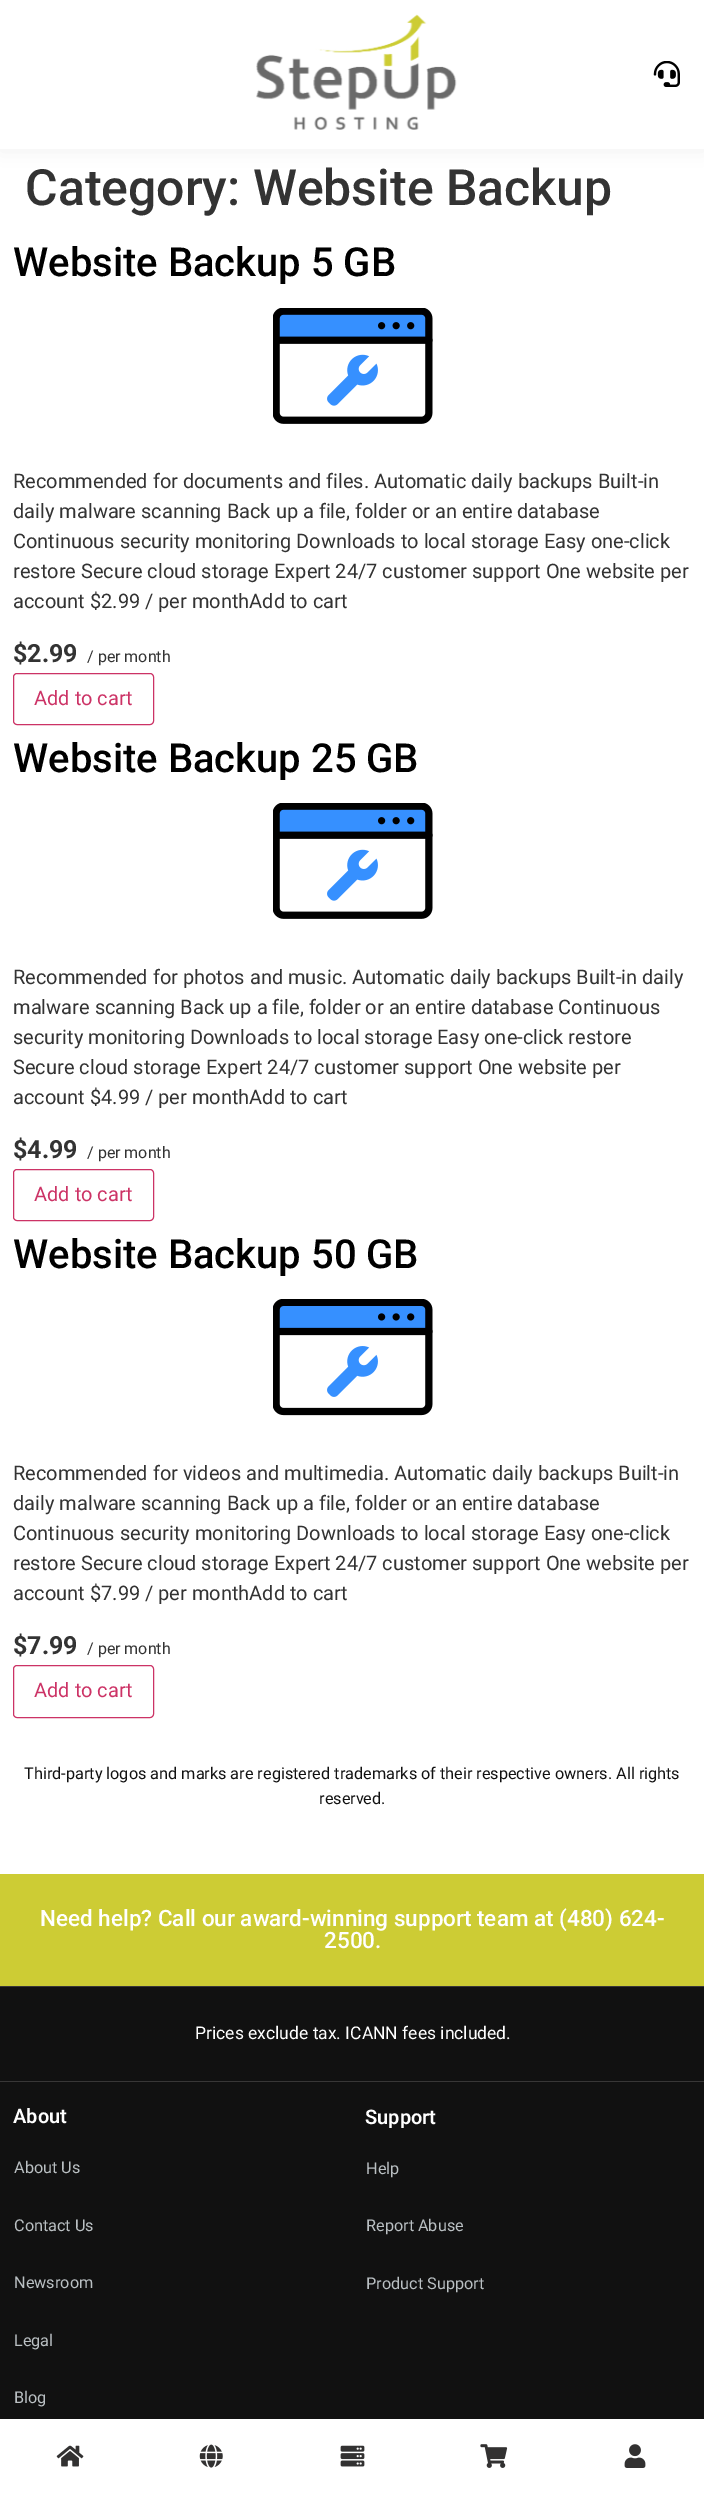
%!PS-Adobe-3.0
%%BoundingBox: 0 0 704 2499
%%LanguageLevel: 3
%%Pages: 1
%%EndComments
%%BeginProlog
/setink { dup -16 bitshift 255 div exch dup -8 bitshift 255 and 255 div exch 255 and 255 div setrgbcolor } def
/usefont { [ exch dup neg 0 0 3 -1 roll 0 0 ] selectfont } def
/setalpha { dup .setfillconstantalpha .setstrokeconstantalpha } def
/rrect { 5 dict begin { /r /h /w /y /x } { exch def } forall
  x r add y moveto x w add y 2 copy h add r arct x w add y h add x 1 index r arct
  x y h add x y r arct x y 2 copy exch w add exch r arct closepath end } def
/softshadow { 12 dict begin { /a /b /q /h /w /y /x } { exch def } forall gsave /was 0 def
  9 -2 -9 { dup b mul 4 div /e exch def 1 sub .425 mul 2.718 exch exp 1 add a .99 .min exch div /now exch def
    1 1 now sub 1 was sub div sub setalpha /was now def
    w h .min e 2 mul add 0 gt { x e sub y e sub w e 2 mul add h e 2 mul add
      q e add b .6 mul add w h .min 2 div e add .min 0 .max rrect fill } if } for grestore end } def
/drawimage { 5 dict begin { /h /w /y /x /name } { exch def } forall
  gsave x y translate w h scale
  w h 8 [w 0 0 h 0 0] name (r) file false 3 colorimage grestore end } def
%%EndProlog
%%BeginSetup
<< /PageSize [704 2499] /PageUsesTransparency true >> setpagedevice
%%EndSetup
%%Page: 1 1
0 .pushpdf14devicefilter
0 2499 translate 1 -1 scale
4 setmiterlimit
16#FFFFFF setink
0 0 704 2499 rectfill
16#000000 setink
0 3 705 148 0 9.5 0.06 softshadow
16#FFFFFF setink
0 0 704 149 rectfill
(img1.raw) 256 14 201 116 drawimage
(img2.raw) 653 61 27 26 drawimage
/Roboto-Medium 50 usefont
16#333333 setink
25 205 moveto (Category: Website Backup) show
/Roboto-Medium 40 usefont
16#000000 setink
13 276 moveto (Website Backup 5 GB) show
(img3.raw) 273 308 160 116 drawimage
/Roboto-Regular 20 usefont
16#333333 setink
[
    [(Recommended for documents and files. Automatic daily backups Built-in) 13 488]
    [(daily malware scanning Back up a file, folder or an entire database) 13 518]
    [(Continuous security monitoring Downloads to local storage Easy one-click) 13 548]
    [(restore Secure cloud storage Expert 24/7 customer support One website per) 13 578]
    [(account $2.99 / per monthAdd to cart) 13 608]
] { aload pop moveto show } forall
/Roboto-Bold 25 usefont
13 662 moveto ($2.99) show
/Roboto-Regular 16 usefont
87 662 moveto (/ per month) show
16#CC3366 setink
13.5 673.5 140 51 3.5 rrect stroke
/Roboto-Regular 20 usefont
34 705 moveto (Add to cart) show
/Roboto-Medium 40 usefont
16#000000 setink
13 772 moveto (Website Backup 25 GB) show
(img3.raw) 273 803 160 116 drawimage
/Roboto-Regular 20 usefont
16#333333 setink
[
    [(Recommended for photos and music. Automatic daily backups Built-in daily) 13 984]
    [(malware scanning Back up a file, folder or an entire database Continuous) 13 1014]
    [(security monitoring Downloads to local storage Easy one-click restore) 13 1044]
    [(Secure cloud storage Expert 24/7 customer support One website per) 13 1074]
    [(account $4.99 / per monthAdd to cart) 13 1104]
] { aload pop moveto show } forall
/Roboto-Bold 25 usefont
13 1158 moveto ($4.99) show
/Roboto-Regular 16 usefont
87 1158 moveto (/ per month) show
16#CC3366 setink
13.5 1169.5 140 51 3.5 rrect stroke
/Roboto-Regular 20 usefont
34 1201 moveto (Add to cart) show
/Roboto-Medium 40 usefont
16#000000 setink
13 1268 moveto (Website Backup 50 GB) show
(img4.raw) 273 1299 160 117 drawimage
/Roboto-Regular 20 usefont
16#333333 setink
[
    [(Recommended for videos and multimedia. Automatic daily backups Built-in) 13 1480]
    [(daily malware scanning Back up a file, folder or an entire database) 13 1510]
    [(Continuous security monitoring Downloads to local storage Easy one-click) 13 1540]
    [(restore Secure cloud storage Expert 24/7 customer support One website per) 13 1570]
    [(account $7.99 / per monthAdd to cart) 13 1600]
] { aload pop moveto show } forall
/Roboto-Bold 25 usefont
13 1654 moveto ($7.99) show
/Roboto-Regular 16 usefont
87 1654 moveto (/ per month) show
16#CC3366 setink
13.5 1665.5 140 52 3.5 rrect stroke
/Roboto-Regular 20 usefont
34 1697 moveto (Add to cart) show
/Roboto-Regular 16.25 usefont
16#111111 setink
24 1779 moveto (Third-party logos and marks are registered trademarks of their respective owners. All rights) show
319 1804 moveto (reserved.) show
16#CDCC34 setink
0 1874 704 112 rectfill
/Roboto-Medium 22.5 usefont
16#FFFFFF setink
40 1926 moveto (Need help? Call our award-winning support team at \(480\) 624-) show
324 1948 moveto (2500.) show
[
    [0 1987 704 432 16#111111]
    [0 1986 704 1 16#383737]
    [0 2081 704 1 16#383737]
] { aload pop setink rectfill } forall
/Roboto-Regular 17.5 usefont
16#FFFFFF setink
195 2039 moveto (Prices exclude tax. ICANN fees included.) show
/Roboto-SemiBold 20 usefont
13 2123 moveto (About) show
/Roboto-Regular 16.25 usefont
16#BAC0C3 setink
[
    [(About Us) 14 2173]
    [(Contact Us) 14 2231]
    [(Newsroom) 14 2288]
    [(Legal) 14 2346]
    [(Blog) 14 2403]
] { aload pop moveto show } forall
/Roboto-SemiBold 20 usefont
16#FFFFFF setink
365 2124 moveto (Support) show
/Roboto-Regular 16.25 usefont
16#BAC0C3 setink
[
    [(Help) 366 2174]
    [(Report Abuse) 366 2231]
    [(Product Support) 366 2289]
] { aload pop moveto show } forall
(img5.raw) 56 2445 28 22 drawimage
(img6.raw) 199 2444 24 24 drawimage
(img7.raw) 340 2445 25 22 drawimage
(img8.raw) 480 2444 28 24 drawimage
(img9.raw) 624 2444 22 24 drawimage
.poppdf14devicefilter showpage
%%EOF
